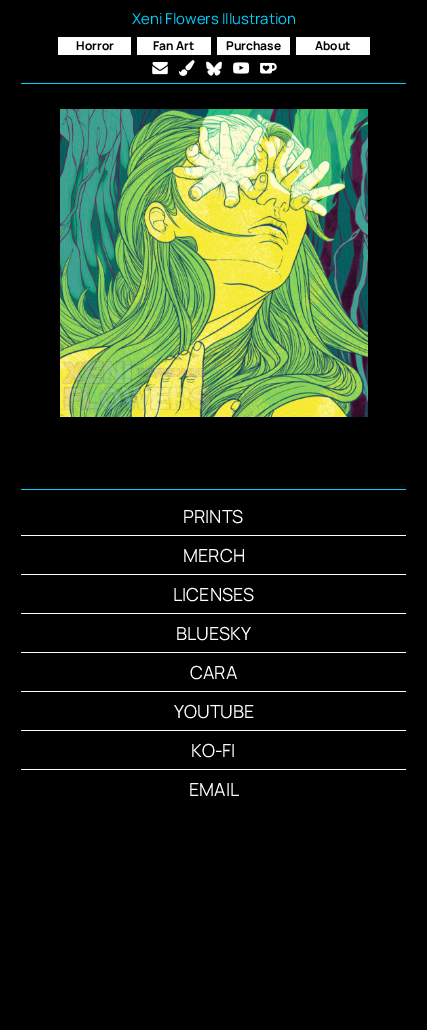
%!PS-Adobe-3.0
%%BoundingBox: 0 0 427 1030
%%LanguageLevel: 3
%%Pages: 1
%%EndComments
%%BeginProlog
/setink { dup -16 bitshift 255 div exch dup -8 bitshift 255 and 255 div exch 255 and 255 div setrgbcolor } def
/usefont { [ exch dup neg 0 0 3 -1 roll 0 0 ] selectfont } def
/drawimage { 5 dict begin { /h /w /y /x /name } { exch def } forall
  gsave x y translate w h scale
  w h 8 [w 0 0 h 0 0] name (r) file false 3 colorimage grestore end } def
%%EndProlog
%%BeginSetup
<< /PageSize [427 1030] >> setpagedevice
%%EndSetup
%%Page: 1 1
0 1030 translate 1 -1 scale
4 setmiterlimit
16#000000 setink
0 0 427 1030 rectfill
/Manrope-Regular 15 usefont
16#00D1FF setink
132 24 moveto (Xeni Flowers Illustration) show
16#FFFFFF setink
58 37 73 18 rectfill
/Manrope-Bold 12 usefont
16#000000 setink
76 50 moveto (Horror) show
16#FFFFFF setink
137 37 74 18 rectfill
16#000000 setink
153 50 moveto (Fan Art) show
16#FFFFFF setink
217 37 73 18 rectfill
16#000000 setink
226 50 moveto (Purchase) show
16#FFFFFF setink
296 37 74 18 rectfill
16#000000 setink
315 50 moveto (About) show
(img1.raw) 152 62 16 13 drawimage
(img2.raw) 178 60 17 16 drawimage
(img3.raw) 206 61 16 15 drawimage
(img4.raw) 233 62 17 12 drawimage
(img5.raw) 260 62 17 12 drawimage
16#00D1FF setink
21 83 385 1 rectfill
(img6.raw) 60 109 308 308 drawimage
21 489 385 1 rectfill
/Manrope-Regular 18 usefont
16#FFFFFF setink
183 523 moveto (PRINTS) show
21 535 385 1 rectfill
183 562 moveto (MERCH) show
21 574 385 1 rectfill
173 601 moveto (LICENSES) show
21 613 385 1 rectfill
176 640 moveto (BLUESKY) show
21 652 385 1 rectfill
190 679 moveto (CARA) show
21 691 385 1 rectfill
174 718 moveto (YOUTUBE) show
21 730 385 1 rectfill
191 757 moveto (KO-FI) show
21 769 385 1 rectfill
189 796 moveto (EMAIL) show
showpage
%%EOF
